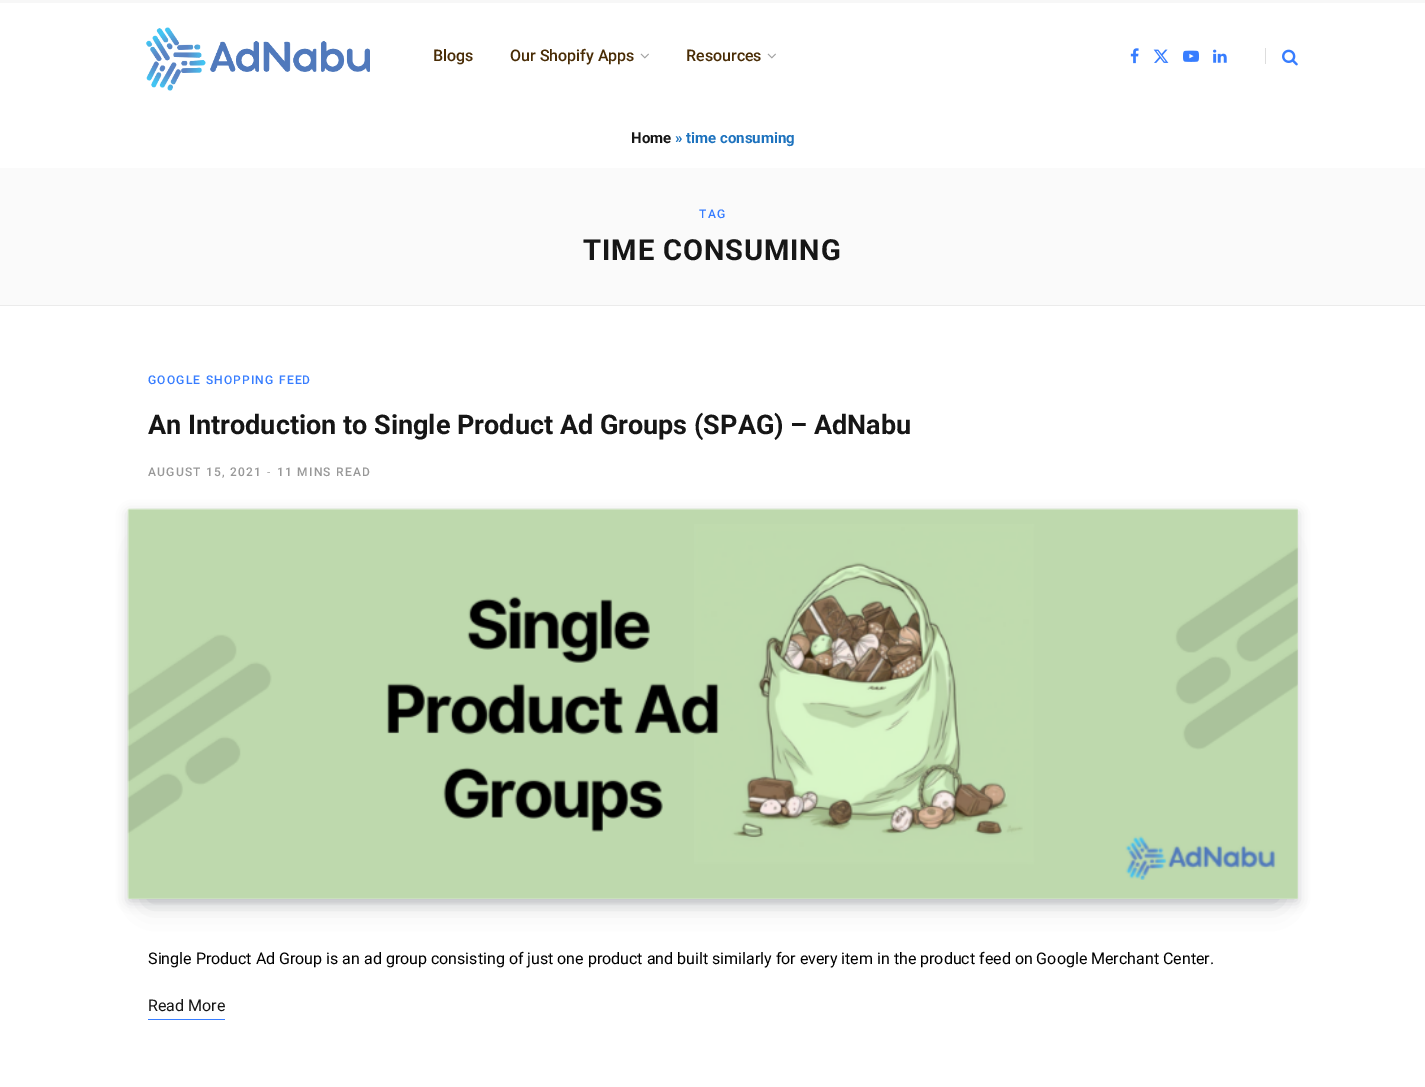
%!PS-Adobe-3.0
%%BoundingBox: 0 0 1425 1087
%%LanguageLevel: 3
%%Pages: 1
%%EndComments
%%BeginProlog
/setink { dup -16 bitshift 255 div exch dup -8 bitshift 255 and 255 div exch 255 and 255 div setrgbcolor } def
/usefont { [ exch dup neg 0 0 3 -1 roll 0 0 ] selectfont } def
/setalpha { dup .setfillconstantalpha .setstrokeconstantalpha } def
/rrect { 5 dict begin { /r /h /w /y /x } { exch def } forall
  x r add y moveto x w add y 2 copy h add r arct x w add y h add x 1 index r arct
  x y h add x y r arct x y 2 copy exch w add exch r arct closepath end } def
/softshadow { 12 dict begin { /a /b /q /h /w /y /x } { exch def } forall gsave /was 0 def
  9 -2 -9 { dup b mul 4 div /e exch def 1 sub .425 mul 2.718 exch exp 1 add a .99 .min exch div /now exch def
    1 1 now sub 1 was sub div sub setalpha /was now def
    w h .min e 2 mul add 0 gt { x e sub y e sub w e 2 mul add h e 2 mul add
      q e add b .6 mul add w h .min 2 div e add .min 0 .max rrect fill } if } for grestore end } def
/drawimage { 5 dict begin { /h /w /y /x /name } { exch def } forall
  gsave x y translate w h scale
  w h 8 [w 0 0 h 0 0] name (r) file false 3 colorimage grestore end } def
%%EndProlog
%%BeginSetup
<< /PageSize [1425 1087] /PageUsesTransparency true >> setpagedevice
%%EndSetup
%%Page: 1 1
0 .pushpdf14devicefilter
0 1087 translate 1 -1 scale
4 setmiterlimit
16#FFFFFF setink
0 0 1425 1087 rectfill
16#F7F7F7 setink
0 0 1425 3 rectfill
(img1.raw) 146 27 224 64 drawimage
/Roboto-Medium 16 usefont
16#492C05 setink
433 61 moveto (Blogs) show
510 61 moveto (Our Shopify Apps) show
(img2.raw) 640 53 9 6 drawimage
686 61 moveto (Resources) show
(img2.raw) 767 53 9 6 drawimage
(img3.raw) 1130 48 9 16 drawimage
(img4.raw) 1153 49 16 14 drawimage
(img5.raw) 1183 50 16 12 drawimage
(img6.raw) 1213 49 14 14 drawimage
16#DDDDDD setink
1265 48 1 16 rectfill
(img7.raw) 1282 49 16 17 drawimage
/Roboto-Bold 15 usefont
16#161616 setink
631 143 moveto (Home) show
16#1E73BE setink
675 143 moveto (» time consuming) show
16#FAFAFA setink
0 168 1425 137 rectfill
16#EBEBEB setink
0 305 1425 1 rectfill
/Roboto-Medium 12 usefont
16#377DFF setink
699 218 moveto 1.2 0 (TAG) ashow
/Roboto-Bold 29 usefont
16#161616 setink
583 260 moveto 0.9 0 (TIME CONSUMING) ashow
/Roboto-Medium 12 usefont
16#377DFF setink
148 384 moveto 1.2 0 (GOOGLE SHOPPING FEED) ashow
/Roboto-Bold 27 usefont
16#161616 setink
148 434 moveto (An Introduction to Single Product Ad Groups \(SPAG\) – AdNabu) show
/Roboto-Medium 12 usefont
16#989898 setink
148 476 moveto 1.2 0 (AUGUST 15, 2021) ashow
/Roboto-Regular 12 usefont
267 476 moveto (-) show
/Roboto-Medium 12 usefont
277 476 moveto 1.2 0 (11 MINS READ) ashow
16#070A19 setink
148 551 1130 350 0 13.5 0.2 softshadow
129 513 1168 388 0 6 0.2 softshadow
(img8.raw) 127 508 1171 391 drawimage
/Roboto-Regular 16 usefont
16#000000 setink
148 964 moveto (Single Product Ad Group is an ad group consisting of just one product and built similarly for every item in the product feed on Google Merchant Center.) show
16#161616 setink
148 1011 moveto (Read More) show
16#377DFF setink
148 1019 77 1 rectfill
.poppdf14devicefilter showpage
%%EOF
